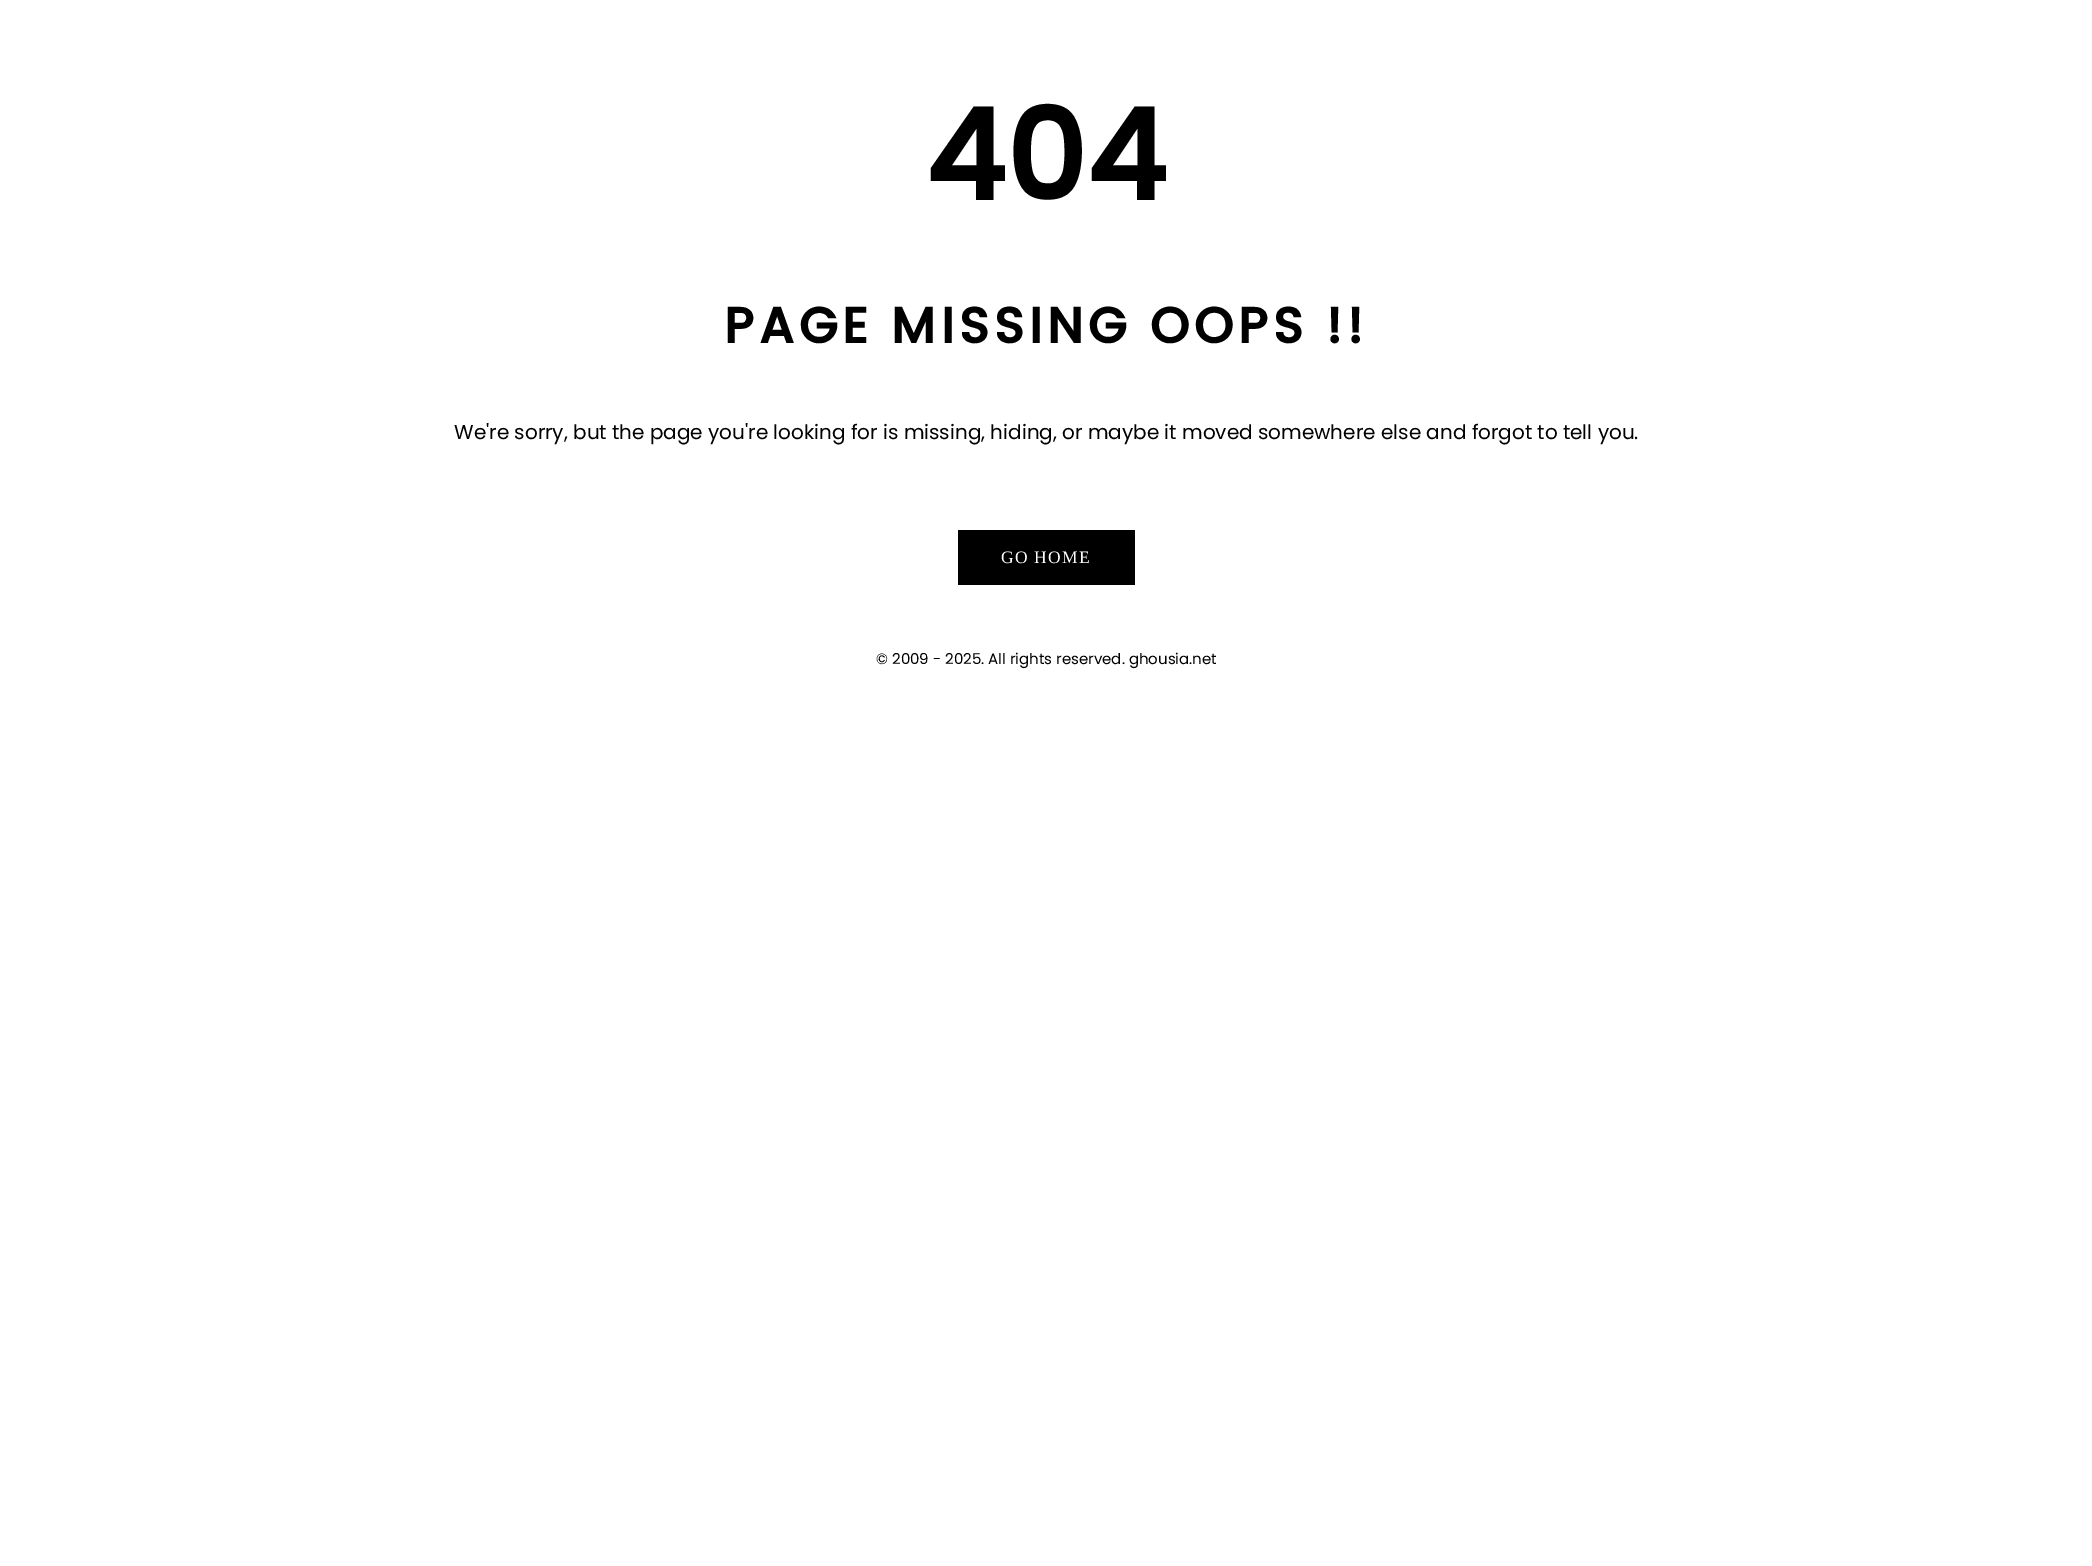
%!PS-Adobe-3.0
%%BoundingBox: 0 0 2092 1566
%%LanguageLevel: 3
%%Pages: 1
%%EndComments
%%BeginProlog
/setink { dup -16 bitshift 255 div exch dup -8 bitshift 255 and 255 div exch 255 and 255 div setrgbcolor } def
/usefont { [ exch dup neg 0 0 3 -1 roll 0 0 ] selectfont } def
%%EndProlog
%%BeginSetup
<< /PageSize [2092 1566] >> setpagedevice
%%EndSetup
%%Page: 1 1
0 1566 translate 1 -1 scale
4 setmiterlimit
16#FFFFFF setink
0 0 2092 1566 rectfill
/Poppins-Bold 125 usefont
16#000000 setink
925 200 moveto (404) show
/Poppins-Bold 50 usefont
724 343 moveto 5 0 (PAGE MISSING OOPS !!) ashow
/Poppins-Regular 20 usefont
454 439 moveto (We're sorry, but the page you're looking for is missing, hiding, or maybe it moved somewhere else and forgot to tell you.) show
958 530 177 55 rectfill
/LiberationSerif-Regular 17.5 usefont
16#FFFFFF setink
1001 563 moveto 1.25 0 (GO HOME) ashow
/Poppins-Regular 15 usefont
16#000000 setink
876 664 moveto (© 2009 - 2025. All rights reserved. ghousia.net) show
showpage
%%EOF
